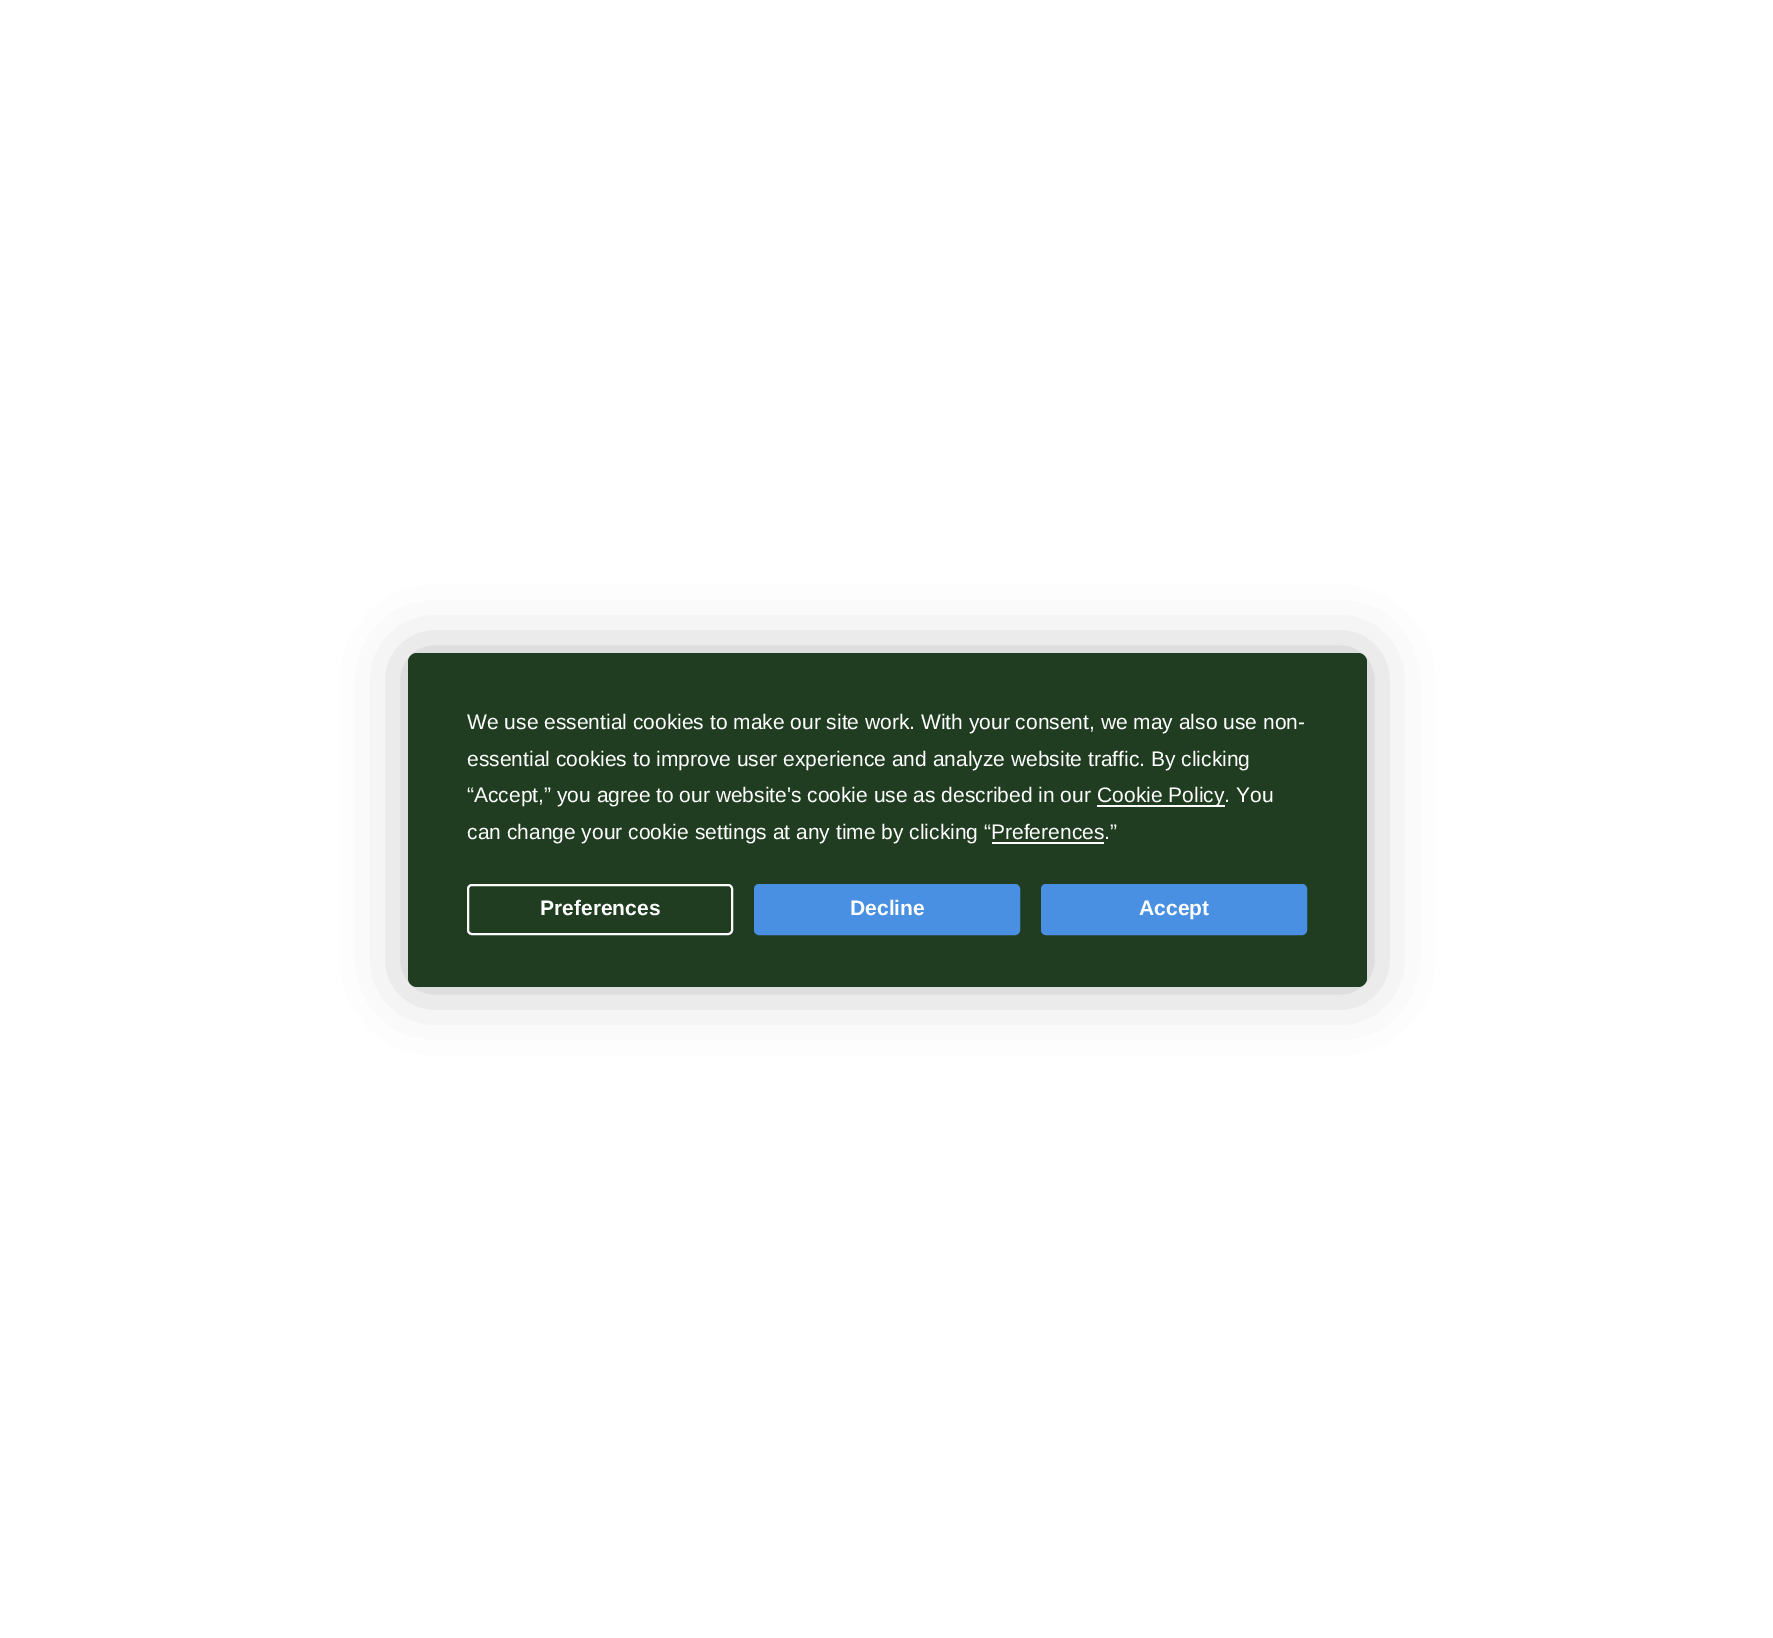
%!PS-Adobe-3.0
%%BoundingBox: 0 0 1773 1638
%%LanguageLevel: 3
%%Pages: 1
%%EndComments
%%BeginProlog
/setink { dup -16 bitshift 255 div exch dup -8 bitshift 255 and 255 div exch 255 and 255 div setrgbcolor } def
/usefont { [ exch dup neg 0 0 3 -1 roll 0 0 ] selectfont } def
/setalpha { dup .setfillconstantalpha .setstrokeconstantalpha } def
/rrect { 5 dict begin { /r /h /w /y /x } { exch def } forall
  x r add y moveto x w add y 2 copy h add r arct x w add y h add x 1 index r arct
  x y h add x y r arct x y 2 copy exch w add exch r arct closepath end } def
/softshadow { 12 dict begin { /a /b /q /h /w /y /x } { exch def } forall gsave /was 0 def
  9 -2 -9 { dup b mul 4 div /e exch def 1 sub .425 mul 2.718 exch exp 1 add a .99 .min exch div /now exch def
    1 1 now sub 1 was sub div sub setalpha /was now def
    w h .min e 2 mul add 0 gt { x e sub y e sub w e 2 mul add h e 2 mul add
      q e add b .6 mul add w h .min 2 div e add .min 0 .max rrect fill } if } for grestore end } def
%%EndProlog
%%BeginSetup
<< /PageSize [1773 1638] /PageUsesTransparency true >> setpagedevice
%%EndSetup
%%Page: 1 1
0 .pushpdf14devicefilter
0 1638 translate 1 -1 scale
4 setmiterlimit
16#FFFFFF setink
0 0 1773 1638 rectfill
16#000000 setink
408 653 959 334 9 30.5 0.25 softshadow
16#203D21 setink
408 653 959 334 9 rrect fill
/LiberationSans-Regular 21 usefont
16#FFFFFF setink
[
    [(We use essential cookies to make our site work. With your consent, we may also use non-) 467 729]
    [(essential cookies to improve user experience and analyze website traffic. By clicking) 467 766]
    [(“Accept,” you agree to our website's cookie use as described in our) 467 802]
] { aload pop moveto show } forall
1097 805 128 2 rectfill
1097 802 moveto (Cookie Policy. You) show
467 839 moveto (can change your cookie settings at any time by clicking “Preferences.”) show
992 842 112 2 rectfill
2 setlinewidth
468 885 264 49 4 rrect stroke
/LiberationSans-Bold 21 usefont
540 915 moveto (Preferences) show
16#4A90E2 setink
755 885 264 49 4 rrect gsave fill grestore
stroke
16#FFFFFF setink
850 915 moveto (Decline) show
16#4A90E2 setink
1042 885 264 49 4 rrect gsave fill grestore
stroke
16#FFFFFF setink
1139 915 moveto (Accept) show
.poppdf14devicefilter showpage
%%EOF
